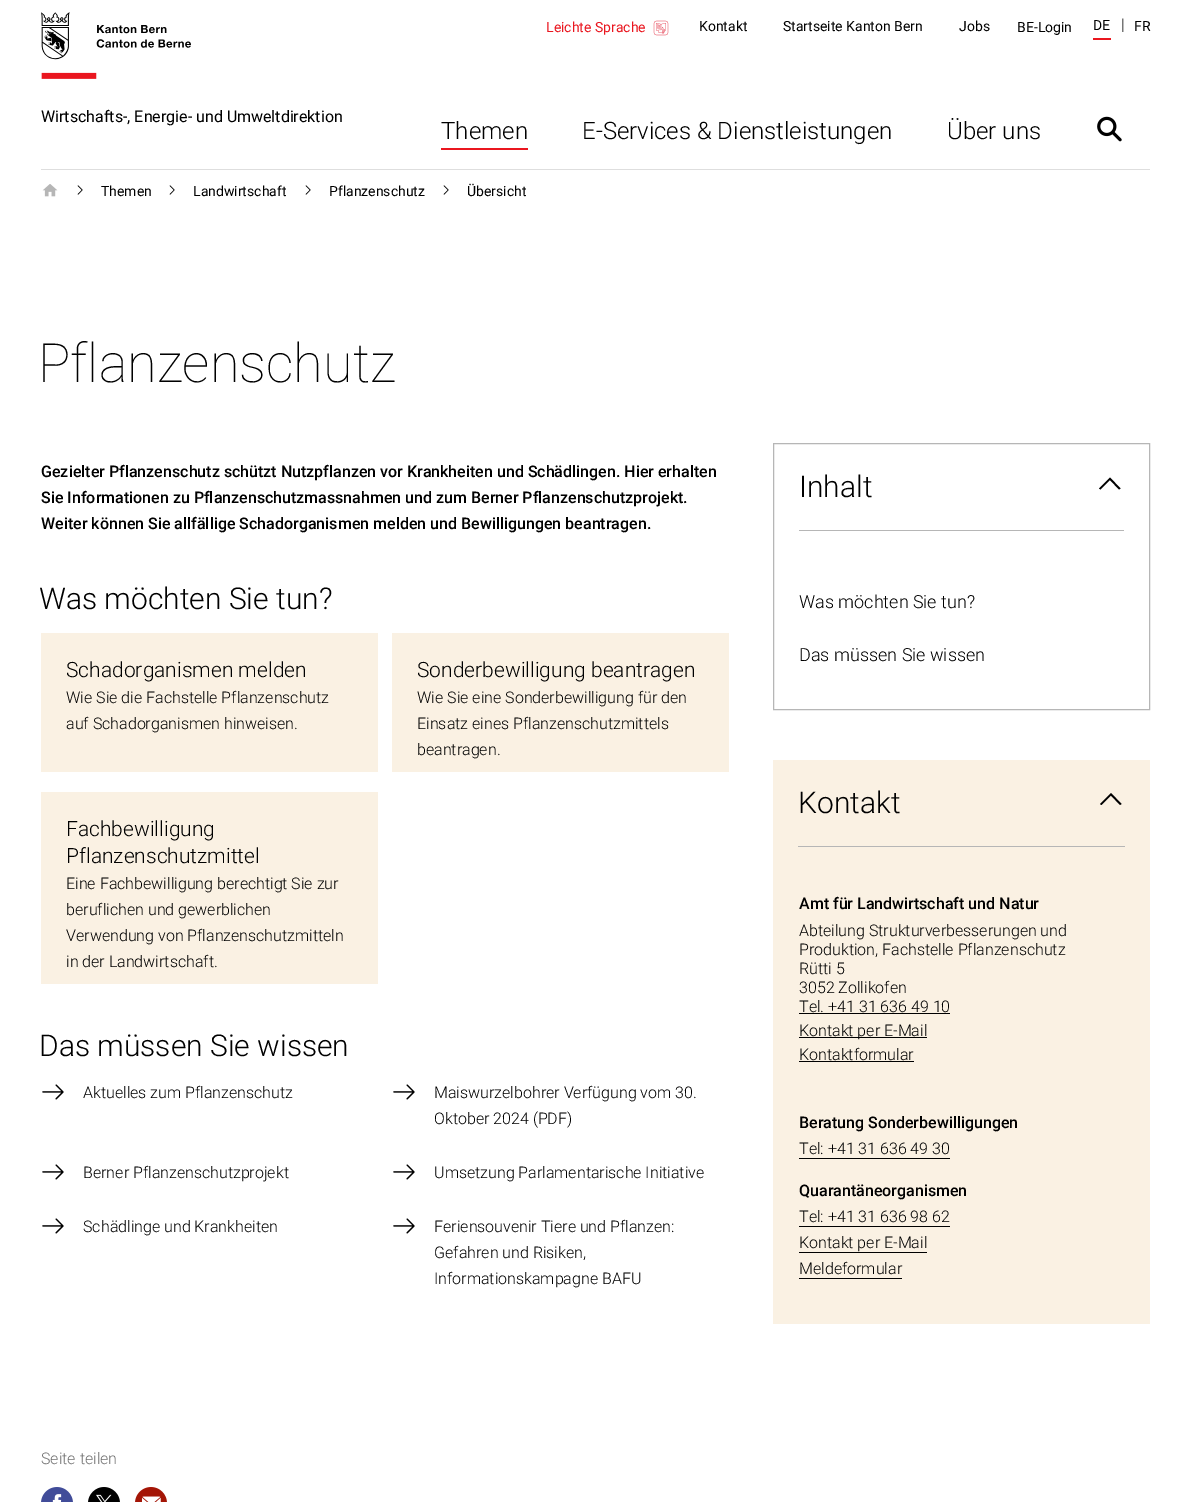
%!PS-Adobe-3.0
%%BoundingBox: 0 0 1191 1502
%%LanguageLevel: 3
%%Pages: 1
%%EndComments
%%BeginProlog
/setink { dup -16 bitshift 255 div exch dup -8 bitshift 255 and 255 div exch 255 and 255 div setrgbcolor } def
/usefont { [ exch dup neg 0 0 3 -1 roll 0 0 ] selectfont } def
/drawimage { 5 dict begin { /h /w /y /x /name } { exch def } forall
  gsave x y translate w h scale
  w h 8 [w 0 0 h 0 0] name (r) file false 3 colorimage grestore end } def
%%EndProlog
%%BeginSetup
<< /PageSize [1191 1502] >> setpagedevice
%%EndSetup
%%Page: 1 1
0 1502 translate 1 -1 scale
4 setmiterlimit
16#FFFFFF setink
0 0 1191 1502 rectfill
(img1.raw) 41 12 150 67 drawimage
/Roboto-Regular 16 usefont
16#000000 setink
41 122 moveto (Wirtschafts-, Energie- und Umweltdirektion) show
/Roboto-Regular 14 usefont
16#EA161F setink
546 32 moveto (Leichte Sprache) show
(img2.raw) 653 20 16 16 drawimage
16#000000 setink
[
    [(Kontakt) 699 31]
    [(Startseite Kanton Bern) 783 31]
    [(Jobs) 959 31]
    [(BE-Login) 1017 32]
    [(DE) 1093 30]
] { aload pop moveto show } forall
16#EA161F setink
1093 38 18 2 rectfill
/Roboto-Light 16 usefont
16#000000 setink
1121 30 moveto (|) show
/Roboto-Regular 14 usefont
1134 31 moveto (FR) show
/Roboto-Light 24 usefont
441 139 moveto (Themen) show
16#EA161F setink
441 148 87 2 rectfill
16#000000 setink
582 139 moveto (E-Services & Dienstleistungen) show
947 139 moveto (Über uns) show
(img3.raw) 1097 116 25 26 drawimage
16#DEDEDE setink
41 169 1109 1 rectfill
(img4.raw) 42 184 16 13 drawimage
(img5.raw) 77 185 6 10 drawimage
/Roboto-Regular 14 usefont
16#000000 setink
101 196 moveto (Themen) show
(img5.raw) 169 185 6 10 drawimage
193 196 moveto (Landwirtschaft) show
(img5.raw) 305 185 6 10 drawimage
329 196 moveto (Pflanzenschutz) show
(img5.raw) 443 185 6 10 drawimage
467 196 moveto (Übersicht) show
/Roboto-Thin 54 usefont
38 382 moveto (Pflanzenschutz) show
/Roboto-Medium 16 usefont
[
    [(Gezielter Pflanzenschutz schützt Nutzpflanzen vor Krankheiten und Schädlingen. Hier erhalten) 41 477]
    [(Sie Informationen zu Pflanzenschutzmassnahmen und zum Berner Pflanzenschutzprojekt.) 41 503]
    [(Weiter können Sie allfällige Schadorganismen melden und Bewilligungen beantragen.) 41 529]
] { aload pop moveto show } forall
/Roboto-Light 30 usefont
39 609 moveto (Was möchten Sie tun?) show
16#FAF1E3 setink
41 633 337 139 rectfill
/Roboto-Light 21 usefont
16#000000 setink
66 677 moveto (Schadorganismen melden) show
/Roboto-Light 16 usefont
66 703 moveto (Wie Sie die Fachstelle Pflanzenschutz) show
66 729 moveto (auf Schadorganismen hinweisen.) show
16#FAF1E3 setink
392 633 337 139 rectfill
/Roboto-Light 21 usefont
16#000000 setink
417 677 moveto (Sonderbewilligung beantragen) show
/Roboto-Light 16 usefont
[
    [(Wie Sie eine Sonderbewilligung für den) 417 703]
    [(Einsatz eines Pflanzenschutzmittels) 417 729]
    [(beantragen.) 417 755]
] { aload pop moveto show } forall
16#FAF1E3 setink
41 792 337 192 rectfill
/Roboto-Light 21 usefont
16#000000 setink
66 836 moveto (Fachbewilligung) show
66 863 moveto (Pflanzenschutzmittel) show
/Roboto-Light 16 usefont
[
    [(Eine Fachbewilligung berechtigt Sie zur) 66 889]
    [(beruflichen und gewerblichen) 66 915]
    [(Verwendung von Pflanzenschutzmitteln) 66 941]
    [(in der Landwirtschaft.) 66 967]
] { aload pop moveto show } forall
/Roboto-Light 30 usefont
39 1056 moveto (Das müssen Sie wissen) show
(img6.raw) 42 1084 22 16 drawimage
/Roboto-Light 16 usefont
83 1098 moveto (Aktuelles zum Pflanzenschutz) show
(img6.raw) 393 1084 22 16 drawimage
434 1098 moveto (Maiswurzelbohrer Verfügung vom 30.) show
434 1124 moveto (Oktober 2024 \(PDF\)) show
(img6.raw) 42 1164 22 16 drawimage
83 1178 moveto (Berner Pflanzenschutzprojekt) show
(img6.raw) 393 1164 22 16 drawimage
434 1178 moveto (Umsetzung Parlamentarische Initiative) show
(img6.raw) 42 1218 22 16 drawimage
83 1232 moveto (Schädlinge und Krankheiten) show
(img6.raw) 393 1218 22 16 drawimage
[
    [(Feriensouvenir Tiere und Pflanzen:) 434 1232]
    [(Gefahren und Risiken,) 434 1258]
    [(Informationskampagne BAFU) 434 1284]
] { aload pop moveto show } forall
16#B6B6B6 setink
773.5 443.5 376 266 rectstroke
/Roboto-Light 30 usefont
16#000000 setink
799 497 moveto (Inhalt) show
1100.5 489.5 moveto 1110 480 lineto 1119 489.5 lineto 1120.5 488.5 lineto 1110 477.5 lineto 1099 488.5 lineto closepath fill
16#B6B6B6 setink
799 530 325 1 rectfill
/Roboto-Light 18 usefont
16#000000 setink
799 608 moveto (Was möchten Sie tun?) show
799 661 moveto (Das müssen Sie wissen) show
16#FAF1E3 setink
773 760 377 564 rectfill
/Roboto-Light 30 usefont
16#000000 setink
798 813 moveto (Kontakt) show
1101.5 805 moveto 1111 795.5 lineto 1120 805 lineto 1121.5 804 lineto 1111 793 lineto 1100 804 lineto closepath fill
16#B6B6B6 setink
798 846 327 1 rectfill
/Roboto-Medium 16 usefont
16#000000 setink
799 909 moveto (Amt für Landwirtschaft und Natur) show
/Roboto-Light 16 usefont
[
    [(Abteilung Strukturverbesserungen und) 799 936]
    [(Produktion, Fachstelle Pflanzenschutz) 799 955]
    [(Rütti 5) 799 974]
    [(3052 Zollikofen) 799 993]
    [(Tel. +41 31 636 49 10) 799 1012]
] { aload pop moveto show } forall
799 1013 151 1 rectfill
799 1037 128 1 rectfill
799 1036 moveto (Kontakt per E-Mail) show
799 1060 moveto (Kontaktformular) show
799 1061 115 1 rectfill
/Roboto-Medium 16 usefont
799 1128 moveto (Beratung Sonderbewilligungen) show
/Roboto-Light 16 usefont
799 1154 moveto (Tel: +41 31 636 49 30) show
799 1158 151 1 rectfill
/Roboto-Medium 16 usefont
799 1196 moveto (Quarantäneorganismen) show
/Roboto-Light 16 usefont
799 1222 moveto (Tel: +41 31 636 98 62) show
799 1226 151 1 rectfill
799 1248 moveto (Kontakt per E-Mail) show
799 1252 128 1 rectfill
799 1274 moveto (Meldeformular) show
799 1278 103 1 rectfill
16#707070 setink
41 1464 moveto (Seite teilen) show
(img7.raw) 41 1487 32 15 drawimage
(img8.raw) 88 1487 32 15 drawimage
(img9.raw) 135 1487 32 15 drawimage
showpage
%%EOF
